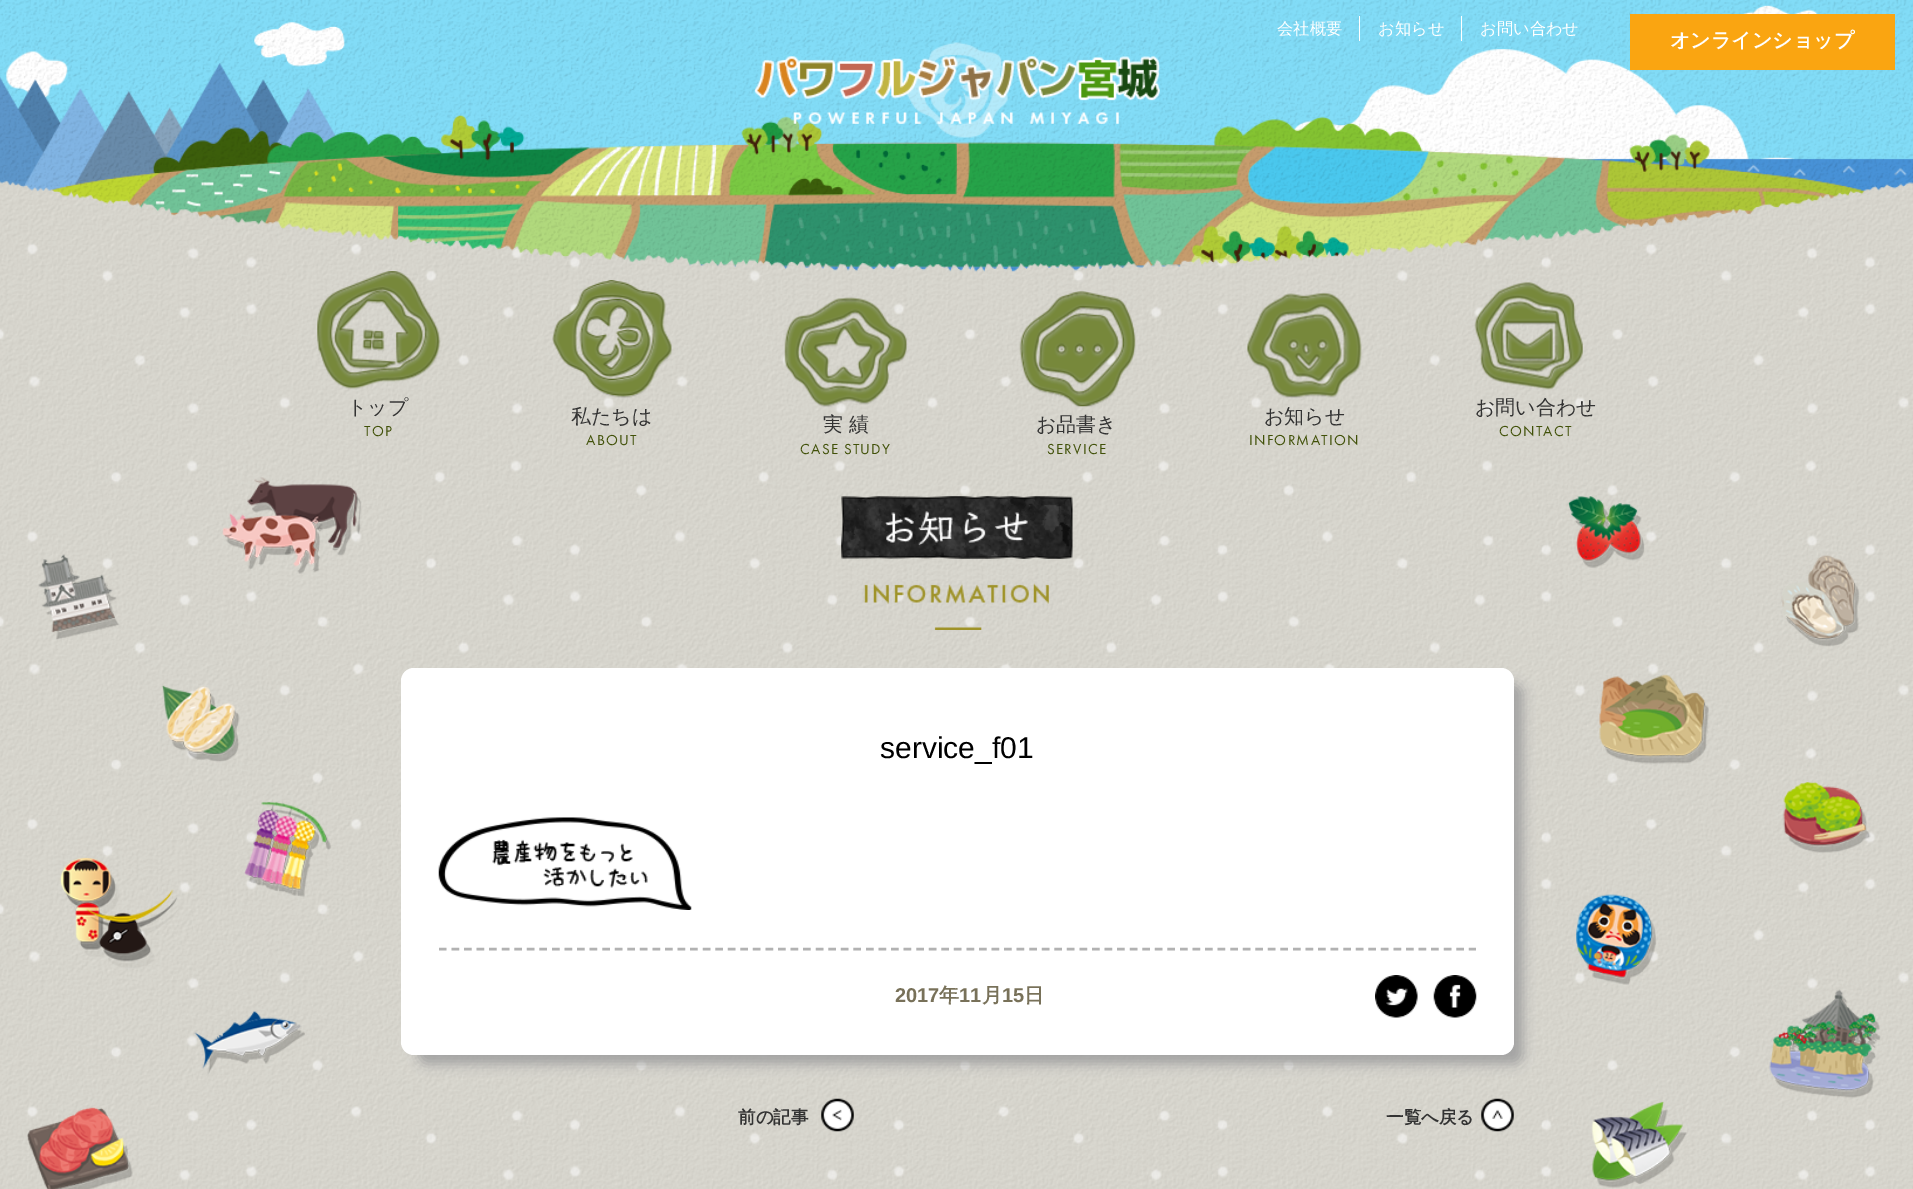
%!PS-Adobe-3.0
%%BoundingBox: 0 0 1913 1189
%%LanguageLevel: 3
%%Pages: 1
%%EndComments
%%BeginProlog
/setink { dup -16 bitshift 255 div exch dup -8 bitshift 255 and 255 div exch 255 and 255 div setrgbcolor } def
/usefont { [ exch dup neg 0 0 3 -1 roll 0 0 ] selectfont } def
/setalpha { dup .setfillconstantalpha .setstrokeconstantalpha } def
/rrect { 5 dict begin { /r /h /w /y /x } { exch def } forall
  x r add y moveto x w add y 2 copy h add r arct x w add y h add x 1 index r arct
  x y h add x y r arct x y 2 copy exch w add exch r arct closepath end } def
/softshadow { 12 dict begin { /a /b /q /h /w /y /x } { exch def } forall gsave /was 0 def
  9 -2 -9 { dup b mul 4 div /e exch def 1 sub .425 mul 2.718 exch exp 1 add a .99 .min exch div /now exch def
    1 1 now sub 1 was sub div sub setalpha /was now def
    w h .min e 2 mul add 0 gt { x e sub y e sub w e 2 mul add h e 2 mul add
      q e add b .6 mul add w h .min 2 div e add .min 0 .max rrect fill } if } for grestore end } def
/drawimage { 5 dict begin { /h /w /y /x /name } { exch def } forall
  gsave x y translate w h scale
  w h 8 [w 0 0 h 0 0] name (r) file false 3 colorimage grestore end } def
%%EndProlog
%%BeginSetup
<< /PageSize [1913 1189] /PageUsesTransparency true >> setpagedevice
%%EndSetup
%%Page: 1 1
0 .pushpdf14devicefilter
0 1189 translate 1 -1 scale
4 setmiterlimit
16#FFFFFF setink
0 0 1913 1189 rectfill
(img1.raw) 0 180 1913 1009 drawimage
(img2.raw) 0 0 1913 272 drawimage
1359 16 1 25 rectfill
/WenQuanYiZenHei-Medium 16.25 usefont
1277 34 moveto (会社概要) show
1461 16 1 25 rectfill
1378 34 moveto (お知らせ) show
1480 34 moveto (お問い合わせ) show
(img3.raw) 754 42 406 96 drawimage
16#FAA511 setink
1630 14 265 56 rectfill
/WenQuanYiZenHei-Bold 20 usefont
16#FFFFFF setink
1670 47 moveto (オンラインショップ) show
(img4.raw) 317 271 124 119 drawimage
/WenQuanYiZenHei-Medium 20 usefont
16#333333 setink
347 414 moveto (トップ) show
/FuturaPT-Regular 15 usefont
16#415109 setink
364 436 moveto 1.25 0 (TOP) ashow
(img5.raw) 552 280 120 118 drawimage
/WenQuanYiZenHei-Medium 20 usefont
16#333333 setink
571 423 moveto (私たちは) show
/FuturaPT-Regular 15 usefont
16#415109 setink
586 445 moveto 1.25 0 (ABOUT) ashow
(img6.raw) 784 297 123 110 drawimage
/WenQuanYiZenHei-Medium 20 usefont
16#333333 setink
823 431 moveto (実 績) show
/FuturaPT-Regular 15 usefont
16#415109 setink
800 454 moveto 1.25 0 (CASE STUDY) ashow
(img7.raw) 1019 291 117 116 drawimage
/WenQuanYiZenHei-Medium 20 usefont
16#333333 setink
1036 431 moveto (お品書き) show
/FuturaPT-Regular 15 usefont
16#415109 setink
1047 454 moveto 1.25 0 (SERVICE) ashow
(img8.raw) 1247 292 115 106 drawimage
/WenQuanYiZenHei-Medium 20 usefont
16#333333 setink
1264 423 moveto (お知らせ) show
/FuturaPT-Regular 15 usefont
16#415109 setink
1249 445 moveto 1.25 0 (INFORMATION) ashow
(img9.raw) 1474 282 109 108 drawimage
/WenQuanYiZenHei-Medium 20 usefont
16#333333 setink
1475 414 moveto (お問い合わせ) show
/FuturaPT-Regular 15 usefont
16#415109 setink
1499 436 moveto 1.25 0 (CONTACT) ashow
(img10.raw) 27 477 1854 712 drawimage
(img11.raw) 841 496 232 134 drawimage
16#A2A2A2 setink
418 684 1105 380 9 6 1 softshadow
16#FFFFFF setink
401 668 1113 387 13 rrect fill
/LiberationSans-Regular 30 usefont
16#000000 setink
880 758 moveto (service_f01) show
(img12.raw) 438 817 254 93 drawimage
16#B2B2B2 setink
2.5 setlinewidth
[7.5 5.06] 0 setdash
439 949 moveto 1476 949 lineto stroke
/LiberationSans-Bold 20 usefont
16#787159 setink
895 1002 moveto (2017) show
/WenQuanYiZenHei-Bold 20 usefont
939 1002 moveto (年) show
/LiberationSans-Bold 20 usefont
959 1002 moveto (11) show
/WenQuanYiZenHei-Bold 20 usefont
982 1002 moveto (月) show
/LiberationSans-Bold 20 usefont
1002 1002 moveto (15) show
/WenQuanYiZenHei-Bold 20 usefont
1024 1002 moveto (日) show
(img13.raw) 1375 975 43 43 drawimage
(img14.raw) 1433 975 44 43 drawimage
(img15.raw) 821 1098 33 34 drawimage
/WenQuanYiZenHei-Bold 17.5 usefont
16#333333 setink
738 1123 moveto (前の記事) show
(img16.raw) 1481 1098 33 34 drawimage
1386 1123 moveto (一覧へ戻る) show
.poppdf14devicefilter showpage
%%EOF
